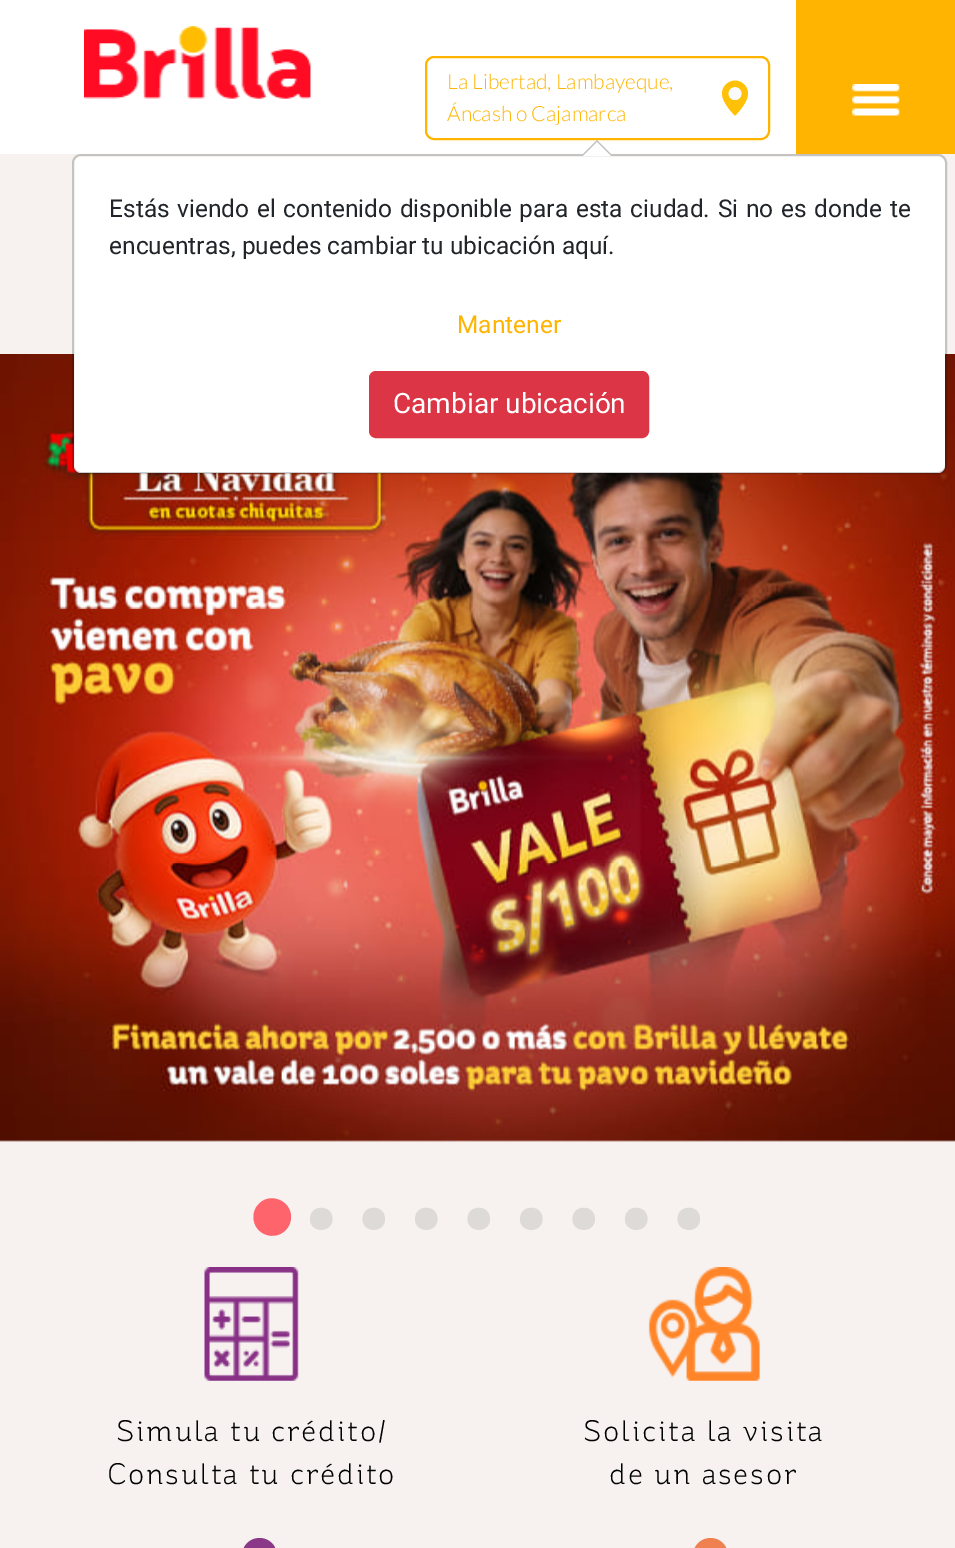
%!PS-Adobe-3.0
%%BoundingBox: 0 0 955 1548
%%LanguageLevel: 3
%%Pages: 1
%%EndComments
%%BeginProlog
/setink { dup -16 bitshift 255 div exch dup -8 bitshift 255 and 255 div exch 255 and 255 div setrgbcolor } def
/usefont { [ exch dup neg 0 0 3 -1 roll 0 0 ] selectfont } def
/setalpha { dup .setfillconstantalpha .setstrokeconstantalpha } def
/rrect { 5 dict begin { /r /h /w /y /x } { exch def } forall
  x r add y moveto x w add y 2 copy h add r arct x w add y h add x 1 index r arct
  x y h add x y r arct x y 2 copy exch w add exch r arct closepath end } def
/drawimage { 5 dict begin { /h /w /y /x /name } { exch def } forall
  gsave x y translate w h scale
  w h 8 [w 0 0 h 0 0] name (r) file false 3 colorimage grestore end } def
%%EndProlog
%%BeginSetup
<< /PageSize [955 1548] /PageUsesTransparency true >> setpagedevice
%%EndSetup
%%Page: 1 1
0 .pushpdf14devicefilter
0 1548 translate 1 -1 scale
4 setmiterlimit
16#F7F2F0 setink
0 0 955 1548 rectfill
16#FFFFFF setink
0 0 796 154 rectfill
(img1.raw) 84 26 227 73 drawimage
(img2.raw) 722 80 26 36 drawimage
16#FFB401 setink
2 setlinewidth
426 57 343 82 8 rrect stroke
/Lato-Light 21 usefont
447 89 moveto (La Libertad, Lambayeque,) show
447 121 moveto (Áncash o Cajamarca) show
796 0 159 154 rectfill
(img3.raw) 852 84 48 32 drawimage
(img4.raw) 0 354 955 788 drawimage
16#FD646B setink
291 1217 moveto 291 1199.5 268 1191.5 257.5 1205.5 curveto 254.5 1209 253.5 1213 253.5 1217 curveto 253.5 1235 276 1242.5 287 1228.5 curveto 289.5 1225.5 291 1221.5 291 1217 curveto closepath fill
16#DEDAD8 setink
332.5 1219 moveto 332.5 1204 310 1204 310 1219 curveto 310 1233.5 332.5 1233.5 332.5 1219 curveto closepath fill
385 1219 moveto 385 1204 362.5 1204 362.5 1219 curveto 362.5 1233.5 385 1233.5 385 1219 curveto closepath fill
437.5 1219 moveto 437.5 1204 415 1204 415 1219 curveto 415 1233.5 437.5 1233.5 437.5 1219 curveto closepath fill
490 1219 moveto 490 1204 467.5 1204 467.5 1219 curveto 467.5 1233.5 490 1233.5 490 1219 curveto closepath fill
542.5 1219 moveto 542.5 1204 520 1204 520 1219 curveto 520 1233.5 542.5 1233.5 542.5 1219 curveto closepath fill
595 1219 moveto 595 1204 572.5 1204 572.5 1219 curveto 572.5 1233.5 595 1233.5 595 1219 curveto closepath fill
647.5 1219 moveto 647.5 1204 625 1204 625 1219 curveto 625 1233.5 647.5 1233.5 647.5 1219 curveto closepath fill
700 1219 moveto 700 1204 677.5 1204 677.5 1219 curveto 677.5 1233.5 700 1233.5 700 1219 curveto closepath fill
(img5.raw) 204 1267 95 114 drawimage
/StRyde-Light 29.75 usefont
16#000000 setink
116 1441 moveto 1.75 0 (Simula tu crédito/) ashow
107 1484 moveto 1.75 0 (Consulta tu crédito) ashow
16#8B3889 setink
242 1538 35 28 17.5 rrect fill
(img6.raw) 648 1267 112 114 drawimage
16#000000 setink
583 1441 moveto 1.75 0 (Solicita la visita) ashow
609 1484 moveto 1.75 0 (de un asesor) ashow
16#EF8150 setink
693 1538 35 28 17.5 rrect fill
16#FFFFFF setink
74 156 871 317 7 rrect fill
0.2 setalpha
16#000000 setink
73 155 873 318 8 rrect stroke
1 setalpha
16#BFBFBF setink
611 154 moveto 583 154 lineto 597 140 lineto closepath fill
16#FFFFFF setink
611 156 moveto 583 156 lineto 597 142 lineto closepath fill
/Roboto-Regular 24.5 usefont
16#212529 setink
109 217 moveto 1.5 0 32 (Estás viendo el contenido disponible para esta ciudad. Si no es donde te) widthshow
109 254 moveto (encuentras, puedes cambiar tu ubicación aquí.) show
16#FFB401 setink
457 333 moveto (Mantener) show
16#DC3545 setink
370 372 278 65 6 rrect gsave fill grestore
stroke
/Roboto-Regular 28 usefont
16#FFFFFF setink
393 413 moveto (Cambiar ubicación) show
.poppdf14devicefilter showpage
%%EOF
